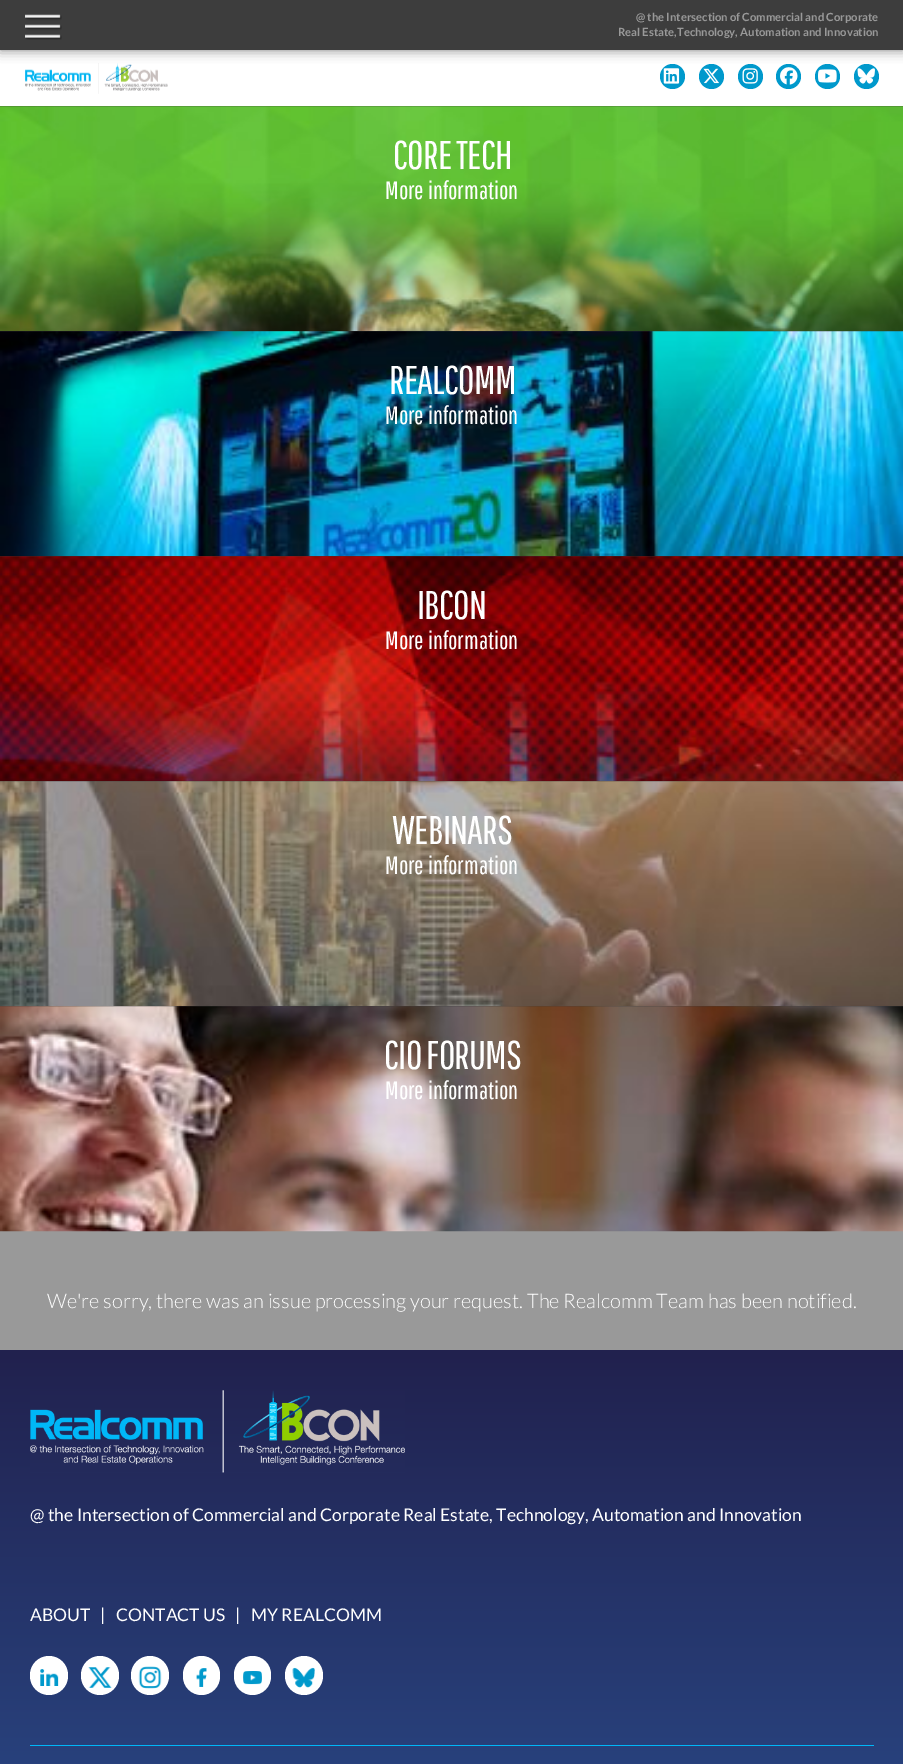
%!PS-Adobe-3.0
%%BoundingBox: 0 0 903 1764
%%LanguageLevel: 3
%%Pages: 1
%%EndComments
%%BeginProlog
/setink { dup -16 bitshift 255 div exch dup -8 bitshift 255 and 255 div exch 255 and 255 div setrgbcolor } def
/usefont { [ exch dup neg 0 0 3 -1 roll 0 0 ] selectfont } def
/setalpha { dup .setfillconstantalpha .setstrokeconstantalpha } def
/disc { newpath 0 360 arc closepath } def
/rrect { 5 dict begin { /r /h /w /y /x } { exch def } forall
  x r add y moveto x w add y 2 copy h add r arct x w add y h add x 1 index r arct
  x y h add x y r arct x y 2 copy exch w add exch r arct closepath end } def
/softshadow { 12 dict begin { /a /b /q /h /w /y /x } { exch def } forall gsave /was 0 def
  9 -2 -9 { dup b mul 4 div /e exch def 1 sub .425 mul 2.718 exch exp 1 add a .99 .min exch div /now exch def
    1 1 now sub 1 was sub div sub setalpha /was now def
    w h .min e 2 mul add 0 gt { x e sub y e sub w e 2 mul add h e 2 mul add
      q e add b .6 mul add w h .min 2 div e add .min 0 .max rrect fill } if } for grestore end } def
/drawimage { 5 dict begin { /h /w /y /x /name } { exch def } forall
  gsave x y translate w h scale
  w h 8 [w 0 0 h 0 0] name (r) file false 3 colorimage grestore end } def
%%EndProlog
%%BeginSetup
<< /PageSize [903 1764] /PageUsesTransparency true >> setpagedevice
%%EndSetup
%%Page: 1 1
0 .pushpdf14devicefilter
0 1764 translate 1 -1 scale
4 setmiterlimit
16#FFFFFF setink
0 0 903 1764 rectfill
(img2.raw) 25 63 143 31 drawimage
16#0099CC setink
672.5 76.5 12.5 disc fill
(img3.raw) 663 68 17 16 drawimage
711.5 76.5 12.5 disc fill
(img4.raw) 703 68 16 16 drawimage
750.5 76.5 12.5 disc fill
(img5.raw) 742 68 16 16 drawimage
788.5 76.5 12.5 disc fill
(img6.raw) 780 67 18 18 drawimage
827.5 76.5 12.5 disc fill
866.5 76.5 12.5 disc fill
(img8.raw) 857 68 18 16 drawimage
16#000000 setink
0 0 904 50 0 6 0.5 softshadow
16#3D3D3D setink
0 0 903 50 rectfill
(img1.raw) 25 14 37 26 drawimage
/Lato-Bold 11.25 usefont
16#999999 setink
636 21 moveto (@ the Intersection of Commercial and Corporate) show
618 36 moveto (Real Estate,Technology, Automation and Innovation) show
(img7.raw) 818 69 19 14 drawimage
(img9.raw) 0 106 903 226 drawimage
/PathwayGothicOne-Regular 40 usefont
16#FFFFFF setink
393 169 moveto -0.75 0 (CORE TECH) ashow
/PathwayGothicOne-Regular 25 usefont
385 199 moveto (More information) show
(img10.raw) 0 331 903 226 drawimage
/PathwayGothicOne-Regular 40 usefont
389 394 moveto -0.75 0 (REALCOMM) ashow
/PathwayGothicOne-Regular 25 usefont
385 424 moveto (More information) show
(img11.raw) 0 556 903 226 drawimage
/PathwayGothicOne-Regular 40 usefont
417 619 moveto -0.75 0 (IBCON) ashow
/PathwayGothicOne-Regular 25 usefont
385 649 moveto (More information) show
(img12.raw) 0 781 903 226 drawimage
/PathwayGothicOne-Regular 40 usefont
392 844 moveto -0.75 0 (WEBINARS) ashow
/PathwayGothicOne-Regular 25 usefont
385 874 moveto (More information) show
16#999999 setink
0 1231 903 119 rectfill
(img13.raw) 0 1006 903 226 drawimage
/PathwayGothicOne-Regular 40 usefont
16#FFFFFF setink
384 1069 moveto -0.75 0 (CIO FORUMS) ashow
/PathwayGothicOne-Regular 25 usefont
385 1099 moveto (More information) show
/Lato-Light 20 usefont
47 1308 moveto (We're sorry, there was an issue processing your request. The Realcomm Team has been notified.) show
gsave 0 1350 moveto 903 1350 lineto 903 1764 lineto 0 1764 lineto closepath clip newpath
<< /ShadingType 2 /ColorSpace /DeviceRGB /Coords [452 1350 452 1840] /Extend [true true] /Function << /FunctionType 2 /Domain [0 1] /C0 [0.129 0.129 0.306] /C1 [0.161 0.278 0.518] /N 1 >> >> shfill grestore
(img14.raw) 30 1390 375 83 drawimage
/Lato-Regular 17.5 usefont
[
    [(@ the Intersection of Commercial and Corporate Real Estate, Technology, Automation and Innovation) 30 1521]
    [(ABOUT) 30 1621]
    [(|) 100 1621]
    [(CONTACT US) 116 1621]
    [(|) 235 1621]
    [(MY REALCOMM) 251 1621]
] { aload pop moveto show } forall
30 1656 38 39 19 rrect fill
(img15.raw) 40 1669 19 17 drawimage
81 1656 38 39 19 rrect fill
(img16.raw) 88 1667 24 21 drawimage
131 1656 38 39 19 rrect fill
(img17.raw) 138 1666 24 23 drawimage
183 1656 37 39 18.5 rrect fill
(img18.raw) 196 1668 11 19 drawimage
234 1656 37 39 18.5 rrect fill
(img19.raw) 243 1671 19 14 drawimage
285 1656 38 39 19 rrect fill
(img20.raw) 292 1667 23 21 drawimage
16#00B7F7 setink
30 1745 844 1 rectfill
.poppdf14devicefilter showpage
%%EOF
